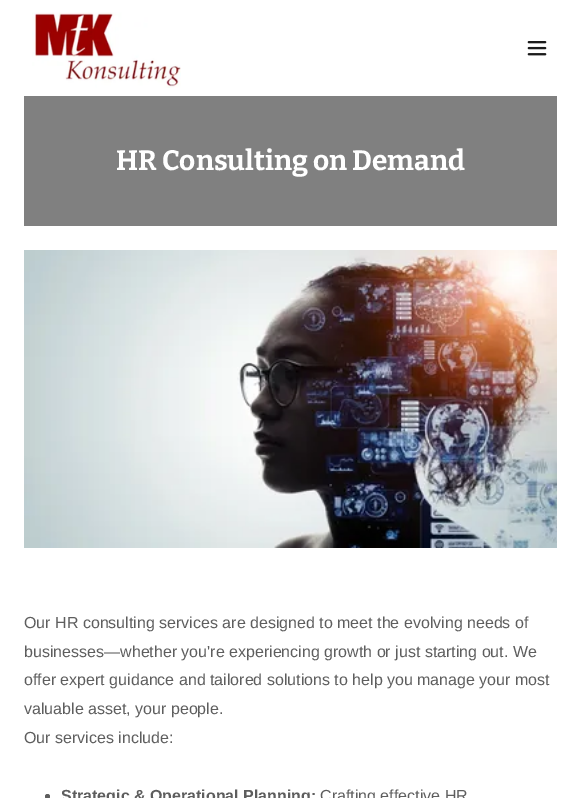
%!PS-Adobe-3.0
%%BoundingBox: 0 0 581 798
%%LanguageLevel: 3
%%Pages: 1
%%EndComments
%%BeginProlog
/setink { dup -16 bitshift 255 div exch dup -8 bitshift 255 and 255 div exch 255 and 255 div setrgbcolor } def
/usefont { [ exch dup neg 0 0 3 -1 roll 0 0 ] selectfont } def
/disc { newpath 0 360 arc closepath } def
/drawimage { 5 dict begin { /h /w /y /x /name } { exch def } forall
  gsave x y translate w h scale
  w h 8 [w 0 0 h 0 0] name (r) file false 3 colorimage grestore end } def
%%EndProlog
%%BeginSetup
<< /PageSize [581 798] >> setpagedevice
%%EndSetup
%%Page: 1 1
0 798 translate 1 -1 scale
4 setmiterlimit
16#FFFFFF setink
0 0 581 798 rectfill
(img1.raw) 32 12 149 76 drawimage
(img2.raw) 527 41 20 15 drawimage
16#808080 setink
24 96 533 130 rectfill
/Bitter-Thin 28 usefont
16#FFFFFF setink
116 170 moveto (HR Consulting on Demand) show
(img3.raw) 24 250 533 298 drawimage
/LiberationSans-Regular 16 usefont
16#5E5E5E setink
[
    [(Our HR consulting services are designed to meet the evolving needs of) 24 628]
    [(businesses—whether you're experiencing growth or just starting out. We) 24 657]
    [(offer expert guidance and tailored solutions to help you manage your most) 24 685]
    [(valuable asset, your people.) 24 714]
    [(Our services include:) 24 743]
] { aload pop moveto show } forall
47.5 796.5 2.5 disc fill
/LiberationSans-Bold 16 usefont
61 801 moveto (Strategic & Operational Planning:) show
/LiberationSans-Regular 16 usefont
320 801 moveto (Crafting effective HR) show
showpage
%%EOF
